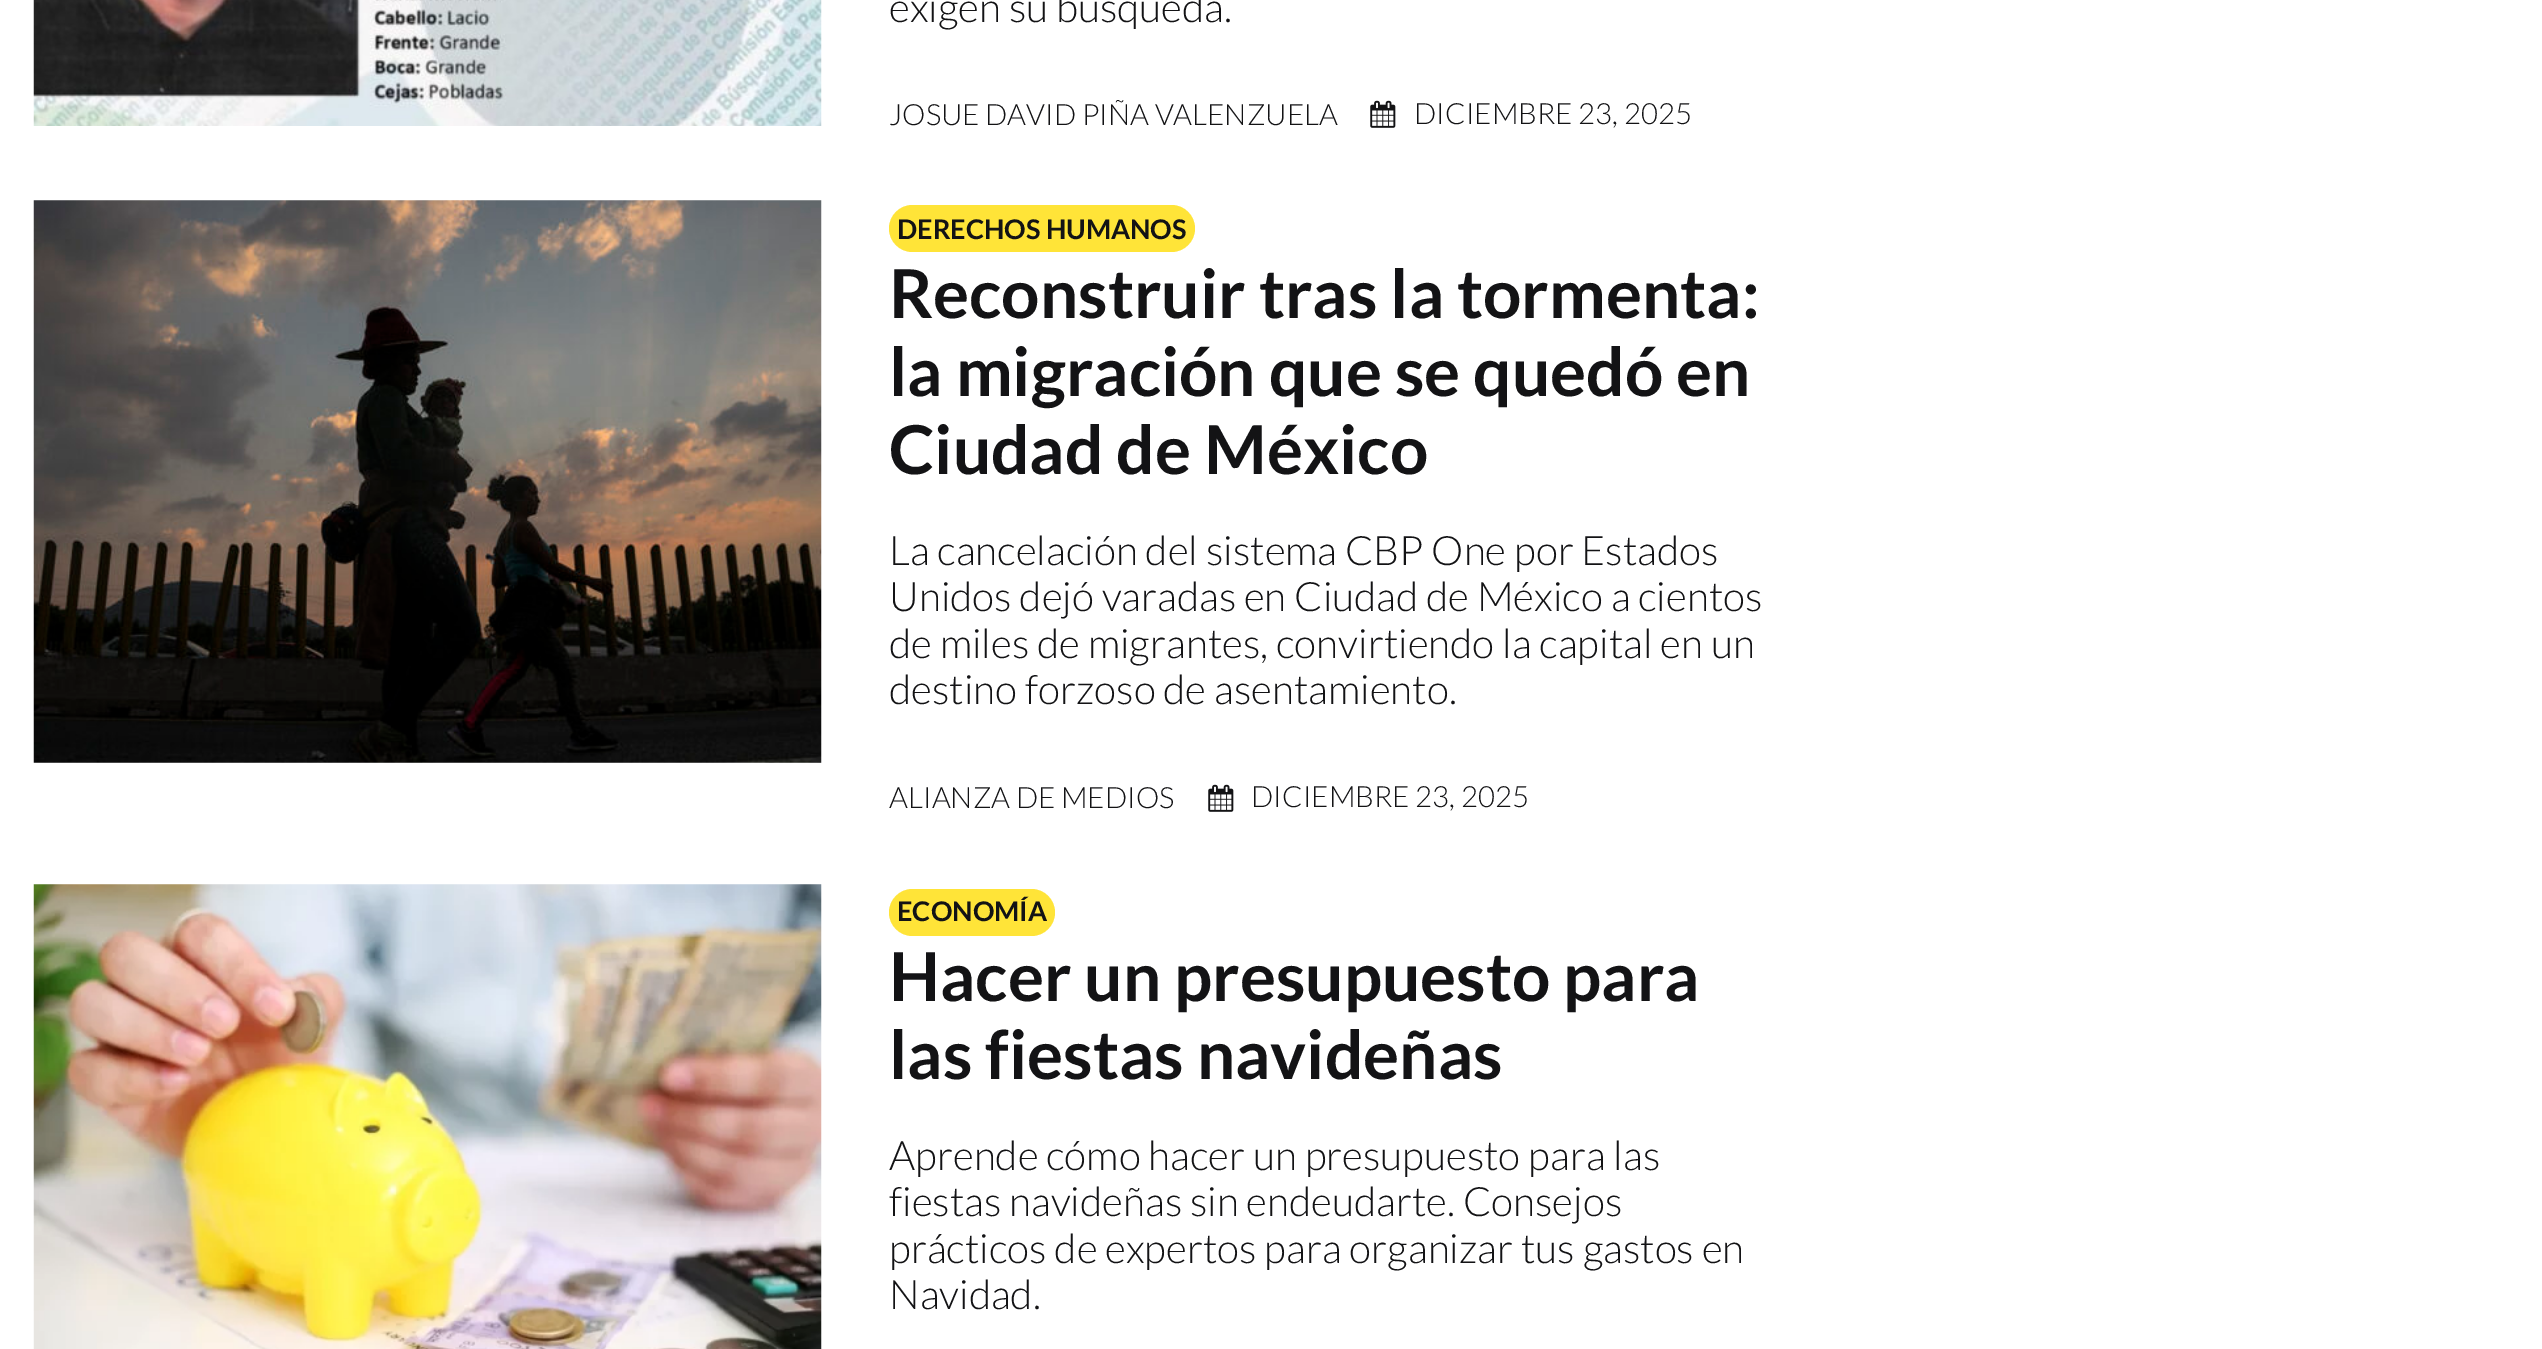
%!PS-Adobe-3.0
%%BoundingBox: 0 0 2542 1349
%%LanguageLevel: 3
%%Pages: 1
%%EndComments
%%BeginProlog
/setink { dup -16 bitshift 255 div exch dup -8 bitshift 255 and 255 div exch 255 and 255 div setrgbcolor } def
/usefont { [ exch dup neg 0 0 3 -1 roll 0 0 ] selectfont } def
/rrect { 5 dict begin { /r /h /w /y /x } { exch def } forall
  x r add y moveto x w add y 2 copy h add r arct x w add y h add x 1 index r arct
  x y h add x y r arct x y 2 copy exch w add exch r arct closepath end } def
/drawimage { 5 dict begin { /h /w /y /x /name } { exch def } forall
  gsave x y translate w h scale
  w h 8 [w 0 0 h 0 0] name (r) file false 3 colorimage grestore end } def
%%EndProlog
%%BeginSetup
<< /PageSize [2542 1349] >> setpagedevice
%%EndSetup
%%Page: 1 1
0 1349 translate 1 -1 scale
4 setmiterlimit
16#FFFFFF setink
0 0 2542 1349 rectfill
(img1.raw) 33 0 789 126 drawimage
/Lato-Light 40.5 usefont
16#131315 setink
889 22 moveto (exigen su búsqueda.) show
/Lato-Light 29.25 usefont
889 125 moveto (JOSUE DAVID PIÑA VALENZUELA) show
(img2.raw) 1370 100 26 28 drawimage
1414 124 moveto (DICIEMBRE 23, 2025) show
(img3.raw) 33 200 789 563 drawimage
16#FFE438 setink
889 205 306 47 23.5 rrect fill
/Lato-Bold 27 usefont
16#131315 setink
897 239 moveto (DERECHOS HUMANOS) show
/Lato-Bold 67.5 usefont
[
    [(Reconstruir tras la tormenta:) 889 318]
    [(la migración que se quedó en) 889 396]
    [(Ciudad de México) 889 474]
] { aload pop moveto show } forall
/Lato-Light 40.5 usefont
[
    [(La cancelación del sistema CBP One por Estados) 889 565]
    [(Unidos dejó varadas en Ciudad de México a cientos) 889 611]
    [(de miles de migrantes, convirtiendo la capital en un) 889 658]
    [(destino forzoso de asentamiento.) 889 704]
] { aload pop moveto show } forall
/Lato-Light 29.25 usefont
889 808 moveto (ALIANZA DE MEDIOS) show
(img2.raw) 1208 784 26 28 drawimage
1251 807 moveto (DICIEMBRE 23, 2025) show
(img4.raw) 33 884 789 465 drawimage
16#FFE438 setink
889 889 166 47 23.5 rrect fill
/Lato-Bold 27 usefont
16#131315 setink
897 921 moveto (ECONOMÍA) show
/Lato-Bold 67.5 usefont
889 1001 moveto (Hacer un presupuesto para) show
889 1079 moveto (las fiestas navideñas) show
/Lato-Light 40.5 usefont
[
    [(Aprende cómo hacer un presupuesto para las) 889 1170]
    [(fiestas navideñas sin endeudarte. Consejos) 889 1216]
    [(prácticos de expertos para organizar tus gastos en) 889 1263]
    [(Navidad.) 889 1309]
] { aload pop moveto show } forall
showpage
%%EOF
